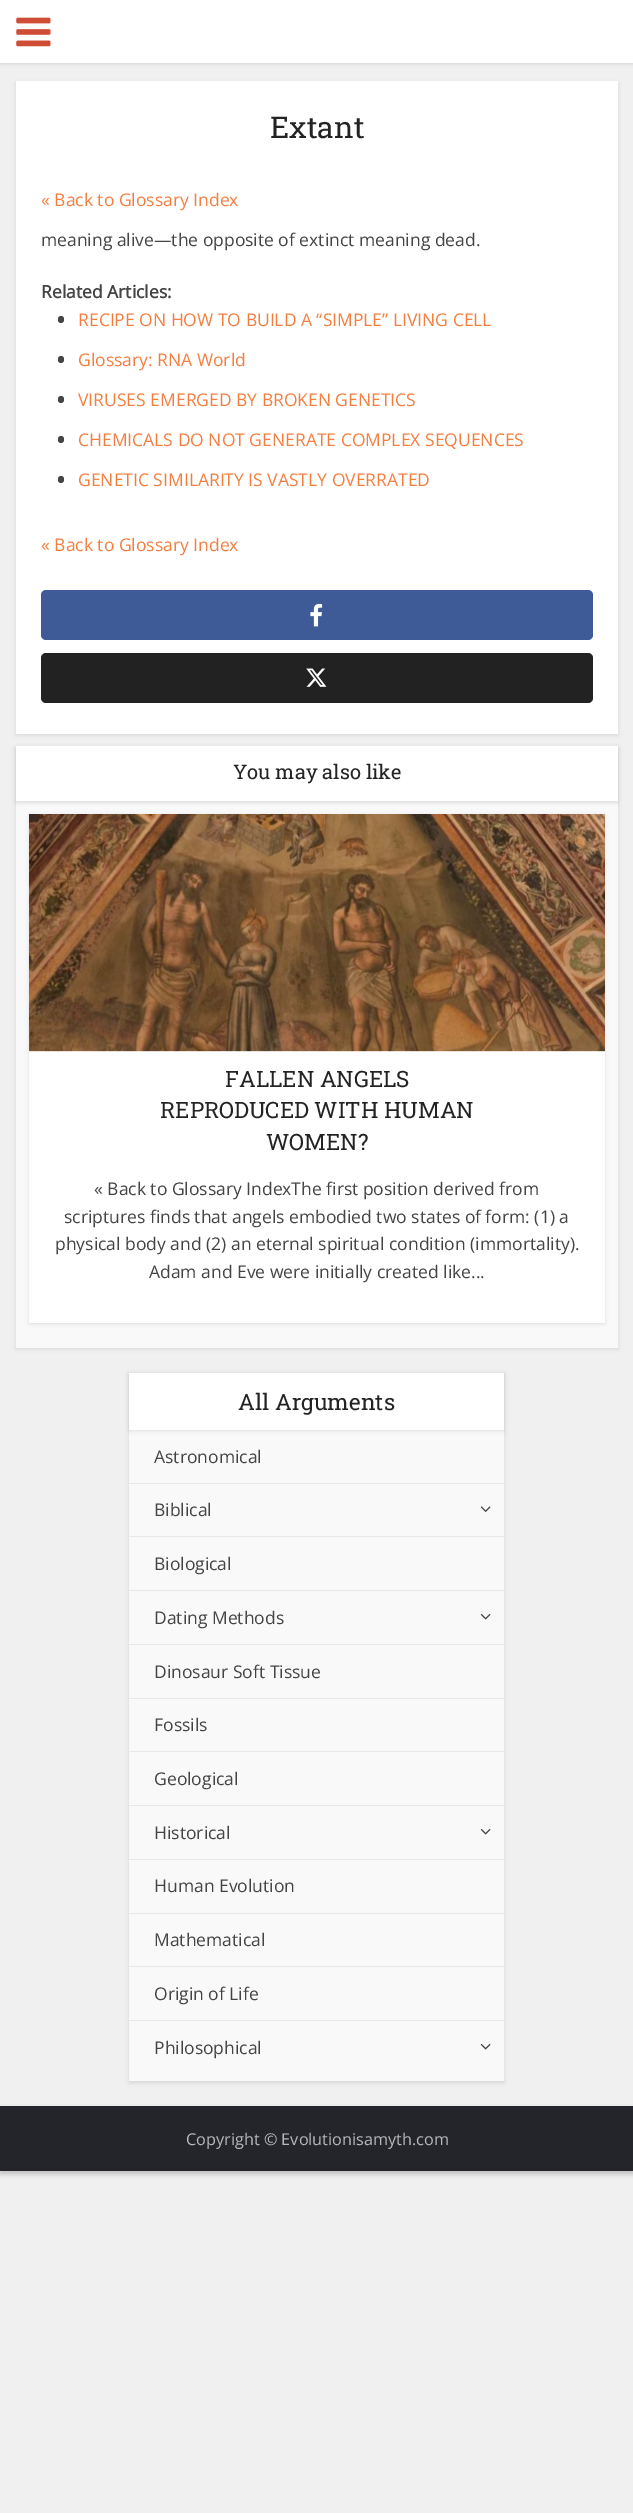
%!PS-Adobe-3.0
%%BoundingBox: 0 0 633 2513
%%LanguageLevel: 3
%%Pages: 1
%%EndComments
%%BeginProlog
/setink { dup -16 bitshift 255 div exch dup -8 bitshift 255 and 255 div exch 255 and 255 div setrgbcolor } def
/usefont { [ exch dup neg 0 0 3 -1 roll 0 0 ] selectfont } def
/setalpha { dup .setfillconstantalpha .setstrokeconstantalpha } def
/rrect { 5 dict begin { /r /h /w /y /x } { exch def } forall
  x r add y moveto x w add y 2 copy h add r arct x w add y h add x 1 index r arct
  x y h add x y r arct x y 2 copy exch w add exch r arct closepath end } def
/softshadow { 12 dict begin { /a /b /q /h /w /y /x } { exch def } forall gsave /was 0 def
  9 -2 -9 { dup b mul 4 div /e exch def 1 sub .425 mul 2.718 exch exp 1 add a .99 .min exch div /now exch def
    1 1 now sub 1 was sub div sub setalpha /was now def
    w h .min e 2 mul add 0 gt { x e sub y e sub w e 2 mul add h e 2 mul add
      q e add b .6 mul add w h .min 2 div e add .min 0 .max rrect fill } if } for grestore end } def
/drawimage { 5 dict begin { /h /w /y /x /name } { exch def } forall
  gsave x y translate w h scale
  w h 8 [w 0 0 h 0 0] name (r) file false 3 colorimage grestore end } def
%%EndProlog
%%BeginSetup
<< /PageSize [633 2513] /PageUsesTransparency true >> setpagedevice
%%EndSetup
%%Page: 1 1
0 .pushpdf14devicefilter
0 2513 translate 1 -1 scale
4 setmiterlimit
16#F0F0F0 setink
0 0 633 2513 rectfill
16#000000 setink
0 1 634 63 0 2 0.1 softshadow
16#FFFFFF setink
0 0 633 63 rectfill
(img1.raw) 16 17 35 30 drawimage
16#000000 setink
16 83 602 652 0 2 0.1 softshadow
16#FFFFFF setink
16 81 602 653 rectfill
/RobotoSlab-Regular 30 usefont
16#232323 setink
270 138 moveto (Extant) show
/OpenSans-Regular 17.5 usefont
16#F47E3F setink
41 206 moveto (« Back to Glossary Index) show
16#444444 setink
41 246 moveto (meaning alive—the opposite of extinct meaning dead.) show
/OpenSans-Bold 17.5 usefont
41 298 moveto (Related Articles:) show
58 316 6 7 3 rrect fill
/OpenSans-Regular 17.5 usefont
16#F47E3F setink
78 326 moveto (RECIPE ON HOW TO BUILD A “SIMPLE” LIVING CELL) show
16#444444 setink
58 356 6 7 3 rrect fill
16#F47E3F setink
78 366 moveto (Glossary: RNA World) show
16#444444 setink
58 396 6 7 3 rrect fill
16#F47E3F setink
78 406 moveto (VIRUSES EMERGED BY BROKEN GENETICS) show
16#444444 setink
58 436 6 7 3 rrect fill
16#F47E3F setink
78 446 moveto (CHEMICALS DO NOT GENERATE COMPLEX SEQUENCES) show
16#444444 setink
58 476 6 7 3 rrect fill
16#F47E3F setink
78 486 moveto (GENETIC SIMILARITY IS VASTLY OVERRATED) show
41 551 moveto (« Back to Glossary Index) show
16#3E5B98 setink
41 590 552 50 5 rrect fill
(img2.raw) 310 603 13 24 drawimage
16#222222 setink
41 653 552 50 5 rrect fill
(img3.raw) 306 668 21 19 drawimage
16#000000 setink
16 748 602 601 0 2 0.1 softshadow
16#F9F9F9 setink
16 801 602 547 rectfill
16#000000 setink
16 748 602 55 0 2 0.1 softshadow
16#FFFFFF setink
16 746 602 55 rectfill
/RobotoSlab-Regular 20 usefont
16#232323 setink
233 779 moveto (You may also like) show
16#000000 setink
29 815 576 509 0 2 0.1 softshadow
16#FFFFFF setink
29 1051 576 272 rectfill
(img4.raw) 29 814 576 238 drawimage
/RobotoSlab-Regular 22.5 usefont
16#232323 setink
[
    [(FALLEN ANGELS) 225 1087]
    [(REPRODUCED WITH HUMAN) 160 1118]
    [(WOMEN?) 266 1150]
] { aload pop moveto show } forall
/OpenSans-Regular 17.5 usefont
16#444444 setink
[
    [(« Back to Glossary IndexThe first position derived from) 94 1195]
    [(scriptures finds that angels embodied two states of form: \(1\) a) 64 1223]
    [(physical body and \(2\) an eternal spiritual condition \(immortality\).) 55 1250]
    [(Adam and Eve were initially created like...) 149 1278]
] { aload pop moveto show } forall
16#000000 setink
129 1374 375 709 0 2 0.1 softshadow
16#F9F9F9 setink
129 1430 375 651 rectfill
16#000000 setink
129 1374 375 57 0 2 0.1 softshadow
16#FFFFFF setink
129 1373 375 57 rectfill
/RobotoSlab-Regular 22.5 usefont
16#232323 setink
238 1410 moveto (All Arguments) show
16#E8E8E8 setink
129 1483 375 1 rectfill
/OpenSans-Regular 17.5 usefont
16#444444 setink
154 1463 moveto (Astronomical) show
16#E8E8E8 setink
129 1536 375 1 rectfill
16#444444 setink
154 1516 moveto (Biblical) show
(img5.raw) 480 1506 11 6 drawimage
16#E8E8E8 setink
129 1590 375 1 rectfill
16#444444 setink
154 1570 moveto (Biological) show
16#E8E8E8 setink
129 1644 375 1 rectfill
16#444444 setink
154 1624 moveto (Dating Methods) show
(img6.raw) 480 1613 11 7 drawimage
16#E8E8E8 setink
129 1698 375 1 rectfill
16#444444 setink
154 1678 moveto (Dinosaur Soft Tissue) show
16#E8E8E8 setink
129 1751 375 1 rectfill
16#444444 setink
154 1731 moveto (Fossils) show
16#E8E8E8 setink
129 1805 375 1 rectfill
16#444444 setink
154 1785 moveto (Geological) show
16#E8E8E8 setink
129 1859 375 1 rectfill
16#444444 setink
154 1839 moveto (Historical) show
(img6.raw) 480 1828 11 7 drawimage
16#E8E8E8 setink
129 1913 375 1 rectfill
16#444444 setink
154 1892 moveto (Human Evolution) show
16#E8E8E8 setink
129 1966 375 1 rectfill
16#444444 setink
154 1946 moveto (Mathematical) show
16#E8E8E8 setink
129 2020 375 1 rectfill
16#444444 setink
154 2000 moveto (Origin of Life) show
154 2054 moveto (Philosophical) show
(img6.raw) 480 2043 11 7 drawimage
16#000000 setink
0 2109 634 65 0 2.5 0.2 softshadow
16#24252A setink
0 2106 633 65 rectfill
/OpenSans-Regular 16.25 usefont
16#B9B9BB setink
186 2145 moveto (Copyright © Evolutionisamyth.com) show
.poppdf14devicefilter showpage
%%EOF
